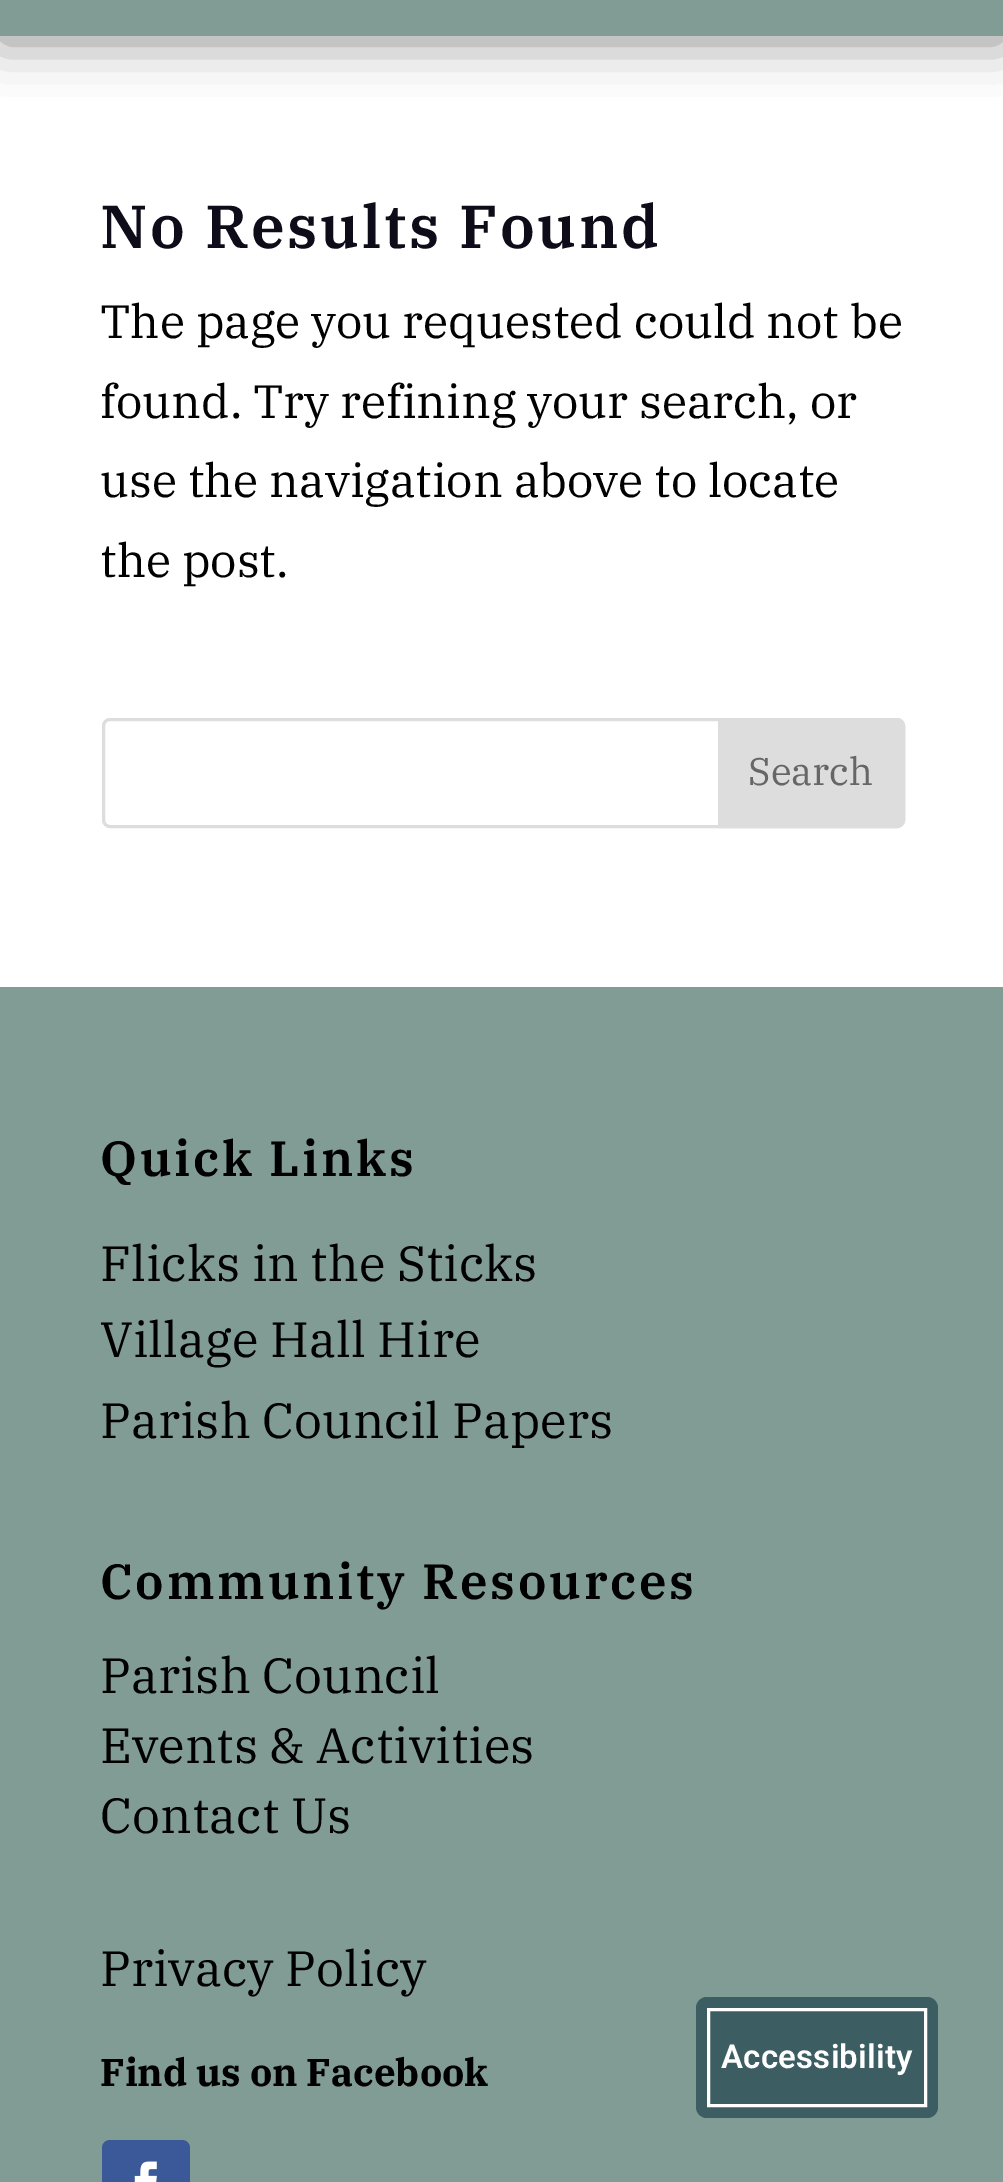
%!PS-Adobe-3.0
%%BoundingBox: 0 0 1003 2182
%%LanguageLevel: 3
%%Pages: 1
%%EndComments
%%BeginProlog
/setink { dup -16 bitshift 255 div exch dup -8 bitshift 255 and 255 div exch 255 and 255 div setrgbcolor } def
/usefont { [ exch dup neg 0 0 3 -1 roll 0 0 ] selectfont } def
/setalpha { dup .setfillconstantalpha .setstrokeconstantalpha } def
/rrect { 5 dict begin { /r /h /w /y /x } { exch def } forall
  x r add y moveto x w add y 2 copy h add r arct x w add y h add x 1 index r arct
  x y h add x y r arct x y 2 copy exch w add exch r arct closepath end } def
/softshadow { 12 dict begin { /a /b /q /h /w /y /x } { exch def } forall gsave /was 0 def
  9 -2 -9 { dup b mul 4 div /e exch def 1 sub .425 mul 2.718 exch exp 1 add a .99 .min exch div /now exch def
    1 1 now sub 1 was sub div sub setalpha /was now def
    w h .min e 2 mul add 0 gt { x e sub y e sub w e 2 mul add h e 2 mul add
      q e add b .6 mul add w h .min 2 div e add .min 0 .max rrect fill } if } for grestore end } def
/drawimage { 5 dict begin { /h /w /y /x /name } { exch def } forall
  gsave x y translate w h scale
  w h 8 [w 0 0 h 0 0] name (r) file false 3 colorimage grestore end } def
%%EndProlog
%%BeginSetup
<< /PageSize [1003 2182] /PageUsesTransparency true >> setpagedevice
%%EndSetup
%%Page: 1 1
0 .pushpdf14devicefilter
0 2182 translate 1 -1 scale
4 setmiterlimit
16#FFFFFF setink
0 0 1003 2182 rectfill
16#000000 setink
0 -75 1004 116 0 25 0.45 softshadow
16#819C94 setink
0 0 1003 36 rectfill
/IBMPlexSerif-SemiBold 60.5 usefont
16#0E0C19 setink
100 248 moveto 2.75 0 (No Results Found) ashow
/IBMPlexSerif-Regular 46.75 usefont
16#000000 setink
[
    [(The page you requested could not be) 100 338]
    [(found. Try refining your search, or) 100 418]
    [(use the navigation above to locate) 100 497]
    [(the post.) 100 577]
] { aload pop moveto show } forall
16#DDDDDD setink
3 setlinewidth
103.5 719.5 800 107 6.5 rrect stroke
719.5 719.5 moveto 897 719.5 lineto 900.5 719.5 903.5 722.5 903.5 726 curveto 903.5 820 lineto 903.5 823.5 900.5 826.5 897 826.5 curveto 719.5 826.5 lineto closepath gsave fill grestore
stroke
/IBMPlexSerif-Regular 38.5 usefont
16#666666 setink
748 785 moveto (Search) show
16#819C94 setink
0 987 1003 1195 rectfill
/IBMPlexSerif-SemiBold 49.5 usefont
16#000000 setink
100 1176 moveto 2.75 0 (Quick Links) ashow
/IBMPlexSerif-Regular 49.5 usefont
[
    [(Flicks in the Sticks) 100 1281]
    [(Village Hall Hire) 100 1357]
    [(Parish Council Papers) 100 1438]
] { aload pop moveto show } forall
/IBMPlexSerif-SemiBold 49.5 usefont
100 1599 moveto 2.75 0 (Community Resources) ashow
/IBMPlexSerif-Regular 49.5 usefont
[
    [(Parish Council) 100 1693]
    [(Events & Activities) 100 1763]
    [(Contact Us) 100 1833]
    [(Privacy Policy) 100 1986]
] { aload pop moveto show } forall
/IBMPlexSerif-Bold 38.5 usefont
100 2086 moveto (Find us on Facebook) show
16#3B5998 setink
102 2140 88 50 8 rrect fill
(img1.raw) 134 2161 23 21 drawimage
16#3C5D62 setink
696 1997 242 121 11 rrect fill
16#FFFFFF setink
708.5 2009.5 217 96 rectstroke
/Roboto-SemiBold 33 usefont
721 2068 moveto 0.25 0 (Accessibility) ashow
.poppdf14devicefilter showpage
%%EOF
